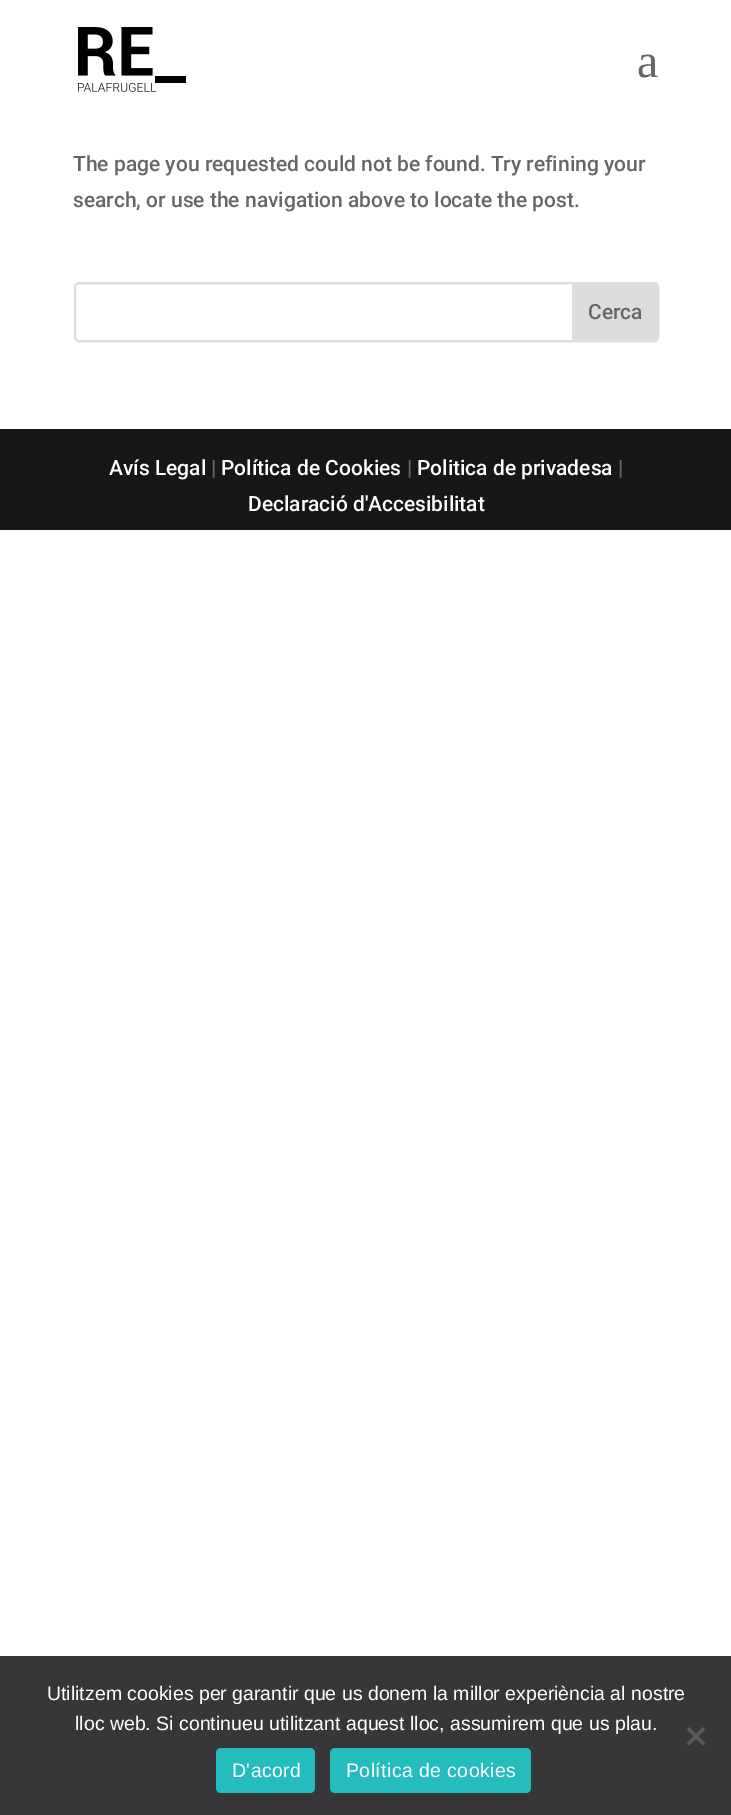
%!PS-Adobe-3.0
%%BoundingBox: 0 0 731 1815
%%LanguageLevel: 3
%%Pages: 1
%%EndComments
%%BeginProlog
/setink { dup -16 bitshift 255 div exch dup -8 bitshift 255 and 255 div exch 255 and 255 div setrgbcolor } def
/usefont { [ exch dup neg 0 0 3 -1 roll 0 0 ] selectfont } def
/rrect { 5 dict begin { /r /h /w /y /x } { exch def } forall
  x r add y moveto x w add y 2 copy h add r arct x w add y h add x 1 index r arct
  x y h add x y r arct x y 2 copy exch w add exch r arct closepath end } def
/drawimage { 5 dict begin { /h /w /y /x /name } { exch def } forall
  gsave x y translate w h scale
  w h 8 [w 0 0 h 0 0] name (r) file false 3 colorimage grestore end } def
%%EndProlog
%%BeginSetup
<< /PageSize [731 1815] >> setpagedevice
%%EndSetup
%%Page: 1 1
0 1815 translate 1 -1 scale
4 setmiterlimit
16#FFFFFF setink
0 0 731 1815 rectfill
(img1.raw) 78 27 108 65 drawimage
/LiberationSerif-Regular 48 usefont
16#666666 setink
637 77 moveto (a) show
/Roboto-Medium 21 usefont
73 171 moveto (The page you requested could not be found. Try refining your) show
73 207 moveto (search, or use the navigation above to locate the post.) show
16#DDDDDD setink
2 setlinewidth
75 283 583 58 4 rrect stroke
573 283 moveto 654 283 lineto 656 283 658 285 658 287 curveto 658 337 lineto 658 339 656 341 654 341 curveto 573 341 lineto closepath gsave fill grestore
stroke
16#666666 setink
588 319 moveto (Cerca) show
16#171717 setink
0 429 731 101 rectfill
16#FFFFFF setink
109 475 moveto (Avís Legal) show
16#666666 setink
211 475 moveto (|) show
16#FFFFFF setink
221 475 moveto (Política de Cookies) show
16#666666 setink
407 475 moveto (|) show
16#FFFFFF setink
417 475 moveto (Politica de privadesa) show
16#666666 setink
618 475 moveto (|) show
16#FFFFFF setink
248 511 moveto (Declaració d'Accesibilitat) show
16#37373A setink
0 1656 731 159 rectfill
/LiberationSans-Regular 19.5 usefont
16#FFFFFF setink
47 1700 moveto (Utilitzem cookies per garantir que us donem la millor experiència al nostre) show
75 1730 moveto (lloc web. Si continueu utilitzant aquest lloc, assumirem que us plau.) show
16#5C5C5D setink
703 1727 moveto 705 1729.5 lineto 689 1745.5 lineto 687 1743 lineto closepath fill
687 1729.5 moveto 689 1727 lineto 705 1743 lineto 703 1745.5 lineto closepath fill
16#25BCBD setink
216 1748 99 45 5 rrect fill
16#FFFFFF setink
232 1777 moveto 0.4 0 (D'acord) ashow
16#25BCBD setink
330 1748 201 45 5 rrect fill
16#FFFFFF setink
346 1777 moveto 0.4 0 (Política de cookies) ashow
showpage
%%EOF
